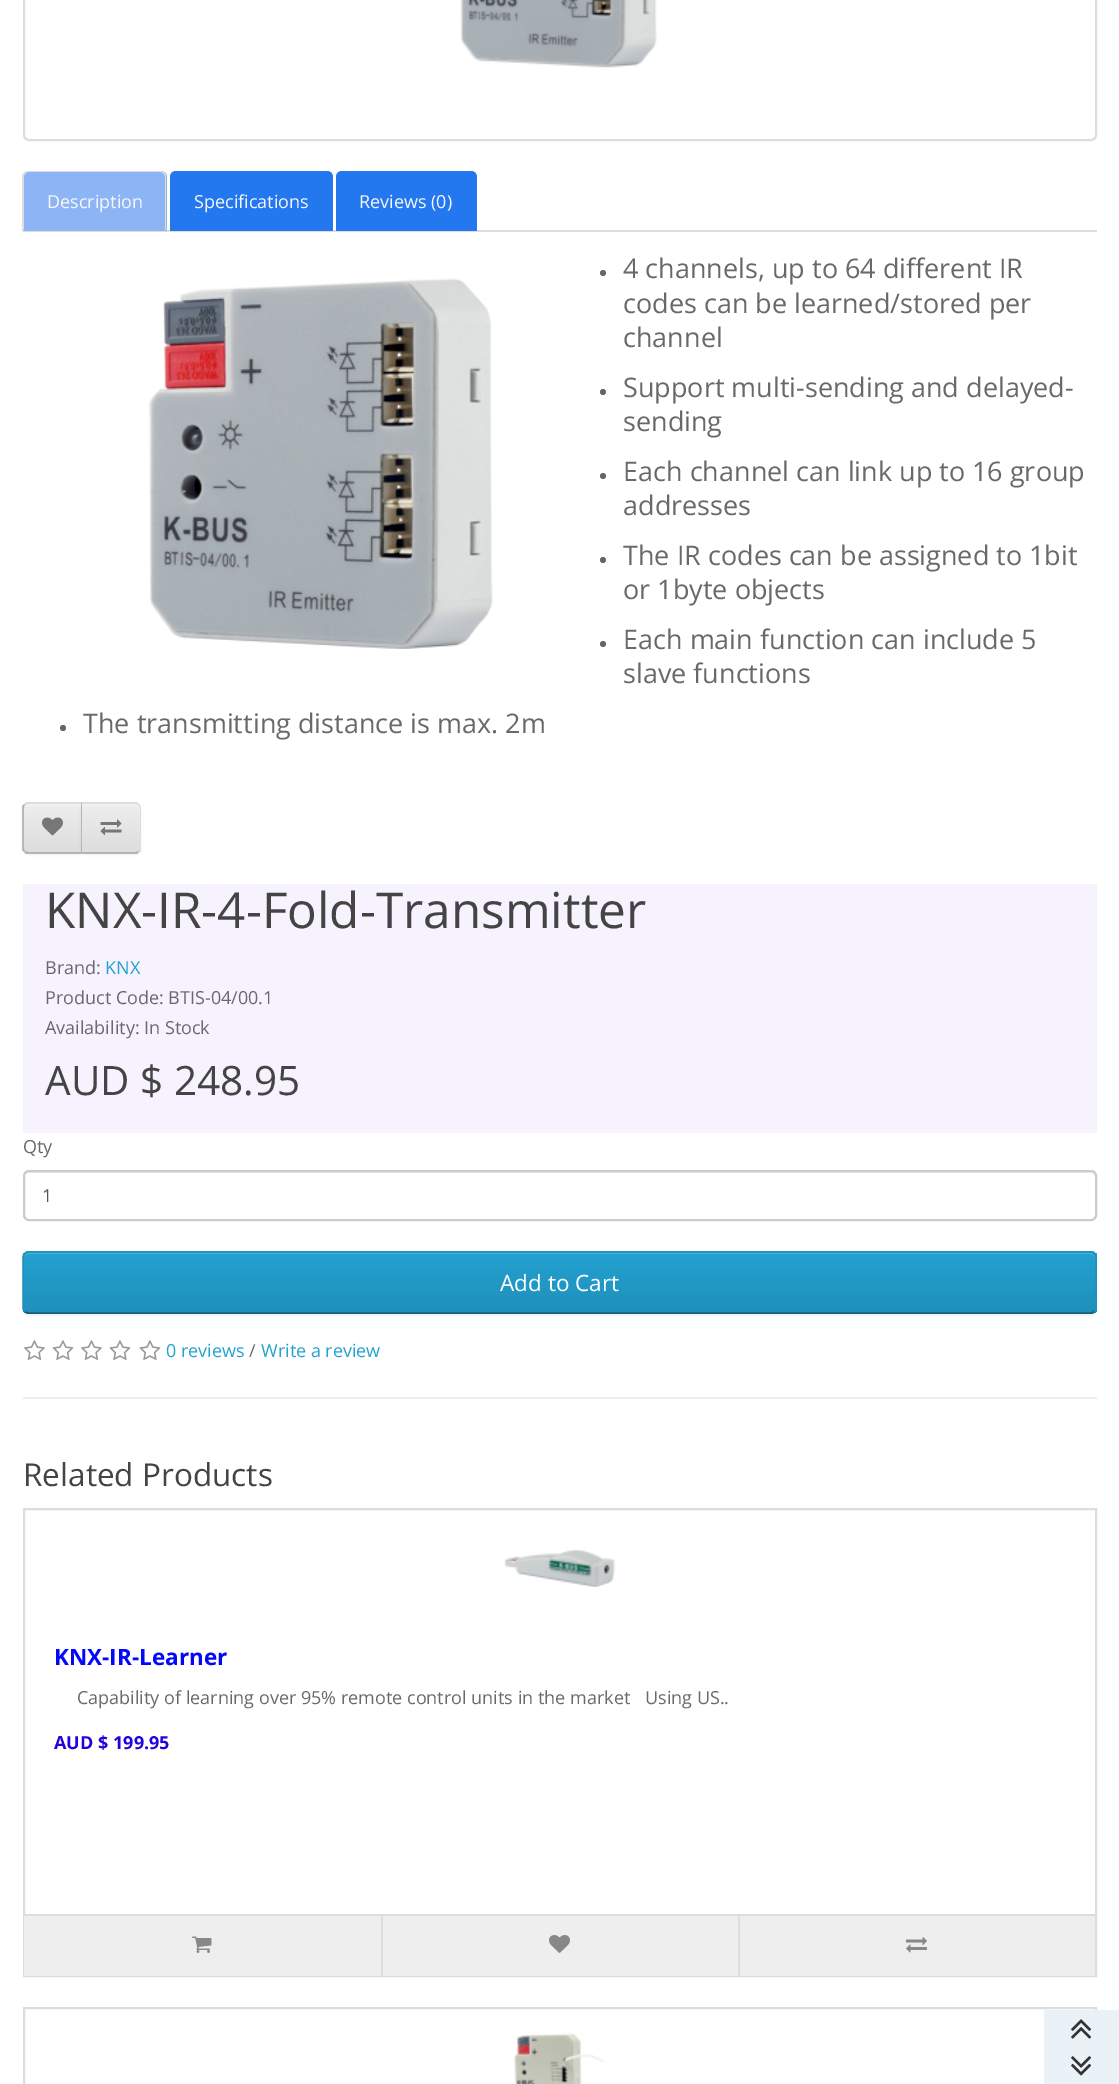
%!PS-Adobe-3.0
%%BoundingBox: 0 0 1119 2084
%%LanguageLevel: 3
%%Pages: 1
%%EndComments
%%BeginProlog
/setink { dup -16 bitshift 255 div exch dup -8 bitshift 255 and 255 div exch 255 and 255 div setrgbcolor } def
/usefont { [ exch dup neg 0 0 3 -1 roll 0 0 ] selectfont } def
/setalpha { dup .setfillconstantalpha .setstrokeconstantalpha } def
/disc { newpath 0 360 arc closepath } def
/rrect { 5 dict begin { /r /h /w /y /x } { exch def } forall
  x r add y moveto x w add y 2 copy h add r arct x w add y h add x 1 index r arct
  x y h add x y r arct x y 2 copy exch w add exch r arct closepath end } def
/softshadow { 12 dict begin { /a /b /q /h /w /y /x } { exch def } forall gsave /was 0 def
  9 -2 -9 { dup b mul 4 div /e exch def 1 sub .425 mul 2.718 exch exp 1 add a .99 .min exch div /now exch def
    1 1 now sub 1 was sub div sub setalpha /was now def
    w h .min e 2 mul add 0 gt { x e sub y e sub w e 2 mul add h e 2 mul add
      q e add b .6 mul add w h .min 2 div e add .min 0 .max rrect fill } if } for grestore end } def
/drawimage { 5 dict begin { /h /w /y /x /name } { exch def } forall
  gsave x y translate w h scale
  w h 8 [w 0 0 h 0 0] name (r) file false 3 colorimage grestore end } def
%%EndProlog
%%BeginSetup
<< /PageSize [1119 2084] /PageUsesTransparency true >> setpagedevice
%%EndSetup
%%Page: 1 1
0 .pushpdf14devicefilter
0 2084 translate 1 -1 scale
4 setmiterlimit
16#FFFFFF setink
0 0 1119 2084 rectfill
16#DDDDDD setink
2 setlinewidth
24 -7 1072 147 5 rrect stroke
(img1.raw) 460 0 197 68 drawimage
23 230 1074 2 rectfill
16#8DB5F6 setink
29 171 moveto 161 171 lineto 164.5 171 167 173.5 167 177 curveto 167 231 lineto 23 231 lineto 23 177 lineto 23 173.5 25.5 171 29 171 curveto closepath fill
16#DDDDDD setink
28 171 moveto 27 171 25 172 24 173 curveto 25 174 lineto 26 173 27 172 28 172 curveto 161 172 lineto 164 174 lineto 165 173 lineto 164 172 162 171 160 171 curveto closepath fill
165 173 moveto 166 174 166 176 166 177 curveto 166 230 lineto 165 230 lineto 165 177 lineto 165 176 165 175 164 174 curveto closepath fill
22 231 moveto 22 175 lineto 24 173 lineto 25 174 lineto 24 175 24 176 24 177 curveto 24 230 lineto closepath fill
/OpenSans-Regular 18 usefont
16#F7F7FB setink
47 208 moveto (Description) show
16#2377EF setink
176 171 moveto 327 171 lineto 330.5 171 333 173.5 333 177 curveto 333 231 lineto 170 231 lineto 170 177 lineto 170 173.5 172.5 171 176 171 curveto closepath fill
16#F7F7FB setink
194 208 moveto (Specifications) show
16#2377EF setink
342 171 moveto 471 171 lineto 474.5 171 477 173.5 477 177 curveto 477 231 lineto 336 231 lineto 336 177 lineto 336 173.5 338.5 171 342 171 curveto closepath fill
16#F7F7FB setink
359 208 moveto (Reviews \(0\)) show
16#666666 setink
603 273 3 disc fill
/OpenSans-Regular 27 usefont
16#696969 setink
[
    [(4 channels, up to 64 different IR) 623 278]
    [(codes can be learned/stored per) 623 313]
    [(channel) 623 347]
] { aload pop moveto show } forall
16#666666 setink
603 392 3 disc fill
16#696969 setink
623 397 moveto (Support multi-sending and delayed-) show
623 431 moveto (sending) show
16#666666 setink
603 476 3 disc fill
16#696969 setink
623 481 moveto (Each channel can link up to 16 group) show
623 515 moveto (addresses) show
16#666666 setink
603 560 3 disc fill
16#696969 setink
623 565 moveto (The IR codes can be assigned to 1bit) show
623 599 moveto (or 1byte objects) show
16#666666 setink
603 644 3 disc fill
16#696969 setink
623 649 moveto (Each main function can include 5) show
623 683 moveto (slave functions) show
16#666666 setink
63 728 3 disc fill
16#696969 setink
83 733 moveto (The transmitting distance is max. 2m) show
(img2.raw) 148 278 345 371 drawimage
16#000000 setink
23 804 60 51 6 1.5 0.05 softshadow
gsave
29 803 moveto 83 803 lineto 83 854 lineto 29 854 lineto 25.5 854 23 851.5 23 848 curveto 23 809 lineto 23 805.5 25.5 803 29 803 curveto closepath clip newpath
gsave 23 804 moveto 81 804 lineto 81 852 lineto 23 852 lineto closepath clip newpath
<< /ShadingType 2 /ColorSpace /DeviceRGB /Coords [53 804 53 852] /Extend [true true] /Function << /FunctionType 2 /Domain [0 1] /C0 [0.933 0.933 0.933] /C1 [0.867 0.867 0.867] /N 1 >> >> shfill grestore
grestore
16#F1F1F1 setink
28 806 moveto 81 806 lineto 81 804 lineto 29 804 lineto 26 804 24 806 24 809 curveto 24 810 lineto 24 808 26 806 28 806 curveto closepath fill
16#DDDDDD setink
28 804 moveto 25 805 lineto 24 804 lineto 26 802 lineto 82 802 lineto 81 804 lineto closepath fill
16#B3B3B3 setink
26 854 moveto 24 852 lineto 25 851 lineto 28 852 lineto 81 852 lineto 82 853 lineto 82 854 lineto closepath fill
16#B7B7B7 setink
22 806 moveto 24 804 lineto 25 805 lineto 24 806 24 807 24 808 curveto 24 848 lineto 24 849 24 850 25 851 curveto 24 852 lineto 22 850 lineto closepath fill
(img3.raw) 42 817 21 19 drawimage
16#000000 setink
81 804 60 51 6 1.5 0.05 softshadow
16#E7E7E7 setink
81 803 moveto 135 803 lineto 138.5 803 141 805.5 141 809 curveto 141 848 lineto 141 851.5 138.5 854 135 854 curveto 81 854 lineto closepath fill
gsave
81 803 moveto 135 803 lineto 138.5 803 141 805.5 141 809 curveto 141 848 lineto 141 851.5 138.5 854 135 854 curveto 81 854 lineto closepath clip newpath
gsave 82 804 moveto 141 804 lineto 141 852 lineto 82 852 lineto closepath clip newpath
<< /ShadingType 2 /ColorSpace /DeviceRGB /Coords [111 804 111 852] /Extend [true true] /Function << /FunctionType 2 /Domain [0 1] /C0 [0.933 0.933 0.933] /C1 [0.867 0.867 0.867] /N 1 >> >> shfill grestore
grestore
16#F1F1F1 setink
83 804 moveto 83 806 lineto 135 806 lineto 137 806 140 808 140 810 curveto 140 807 138 804 135 804 curveto closepath fill
16#DDDDDD setink
81 802 moveto 137 802 lineto 139 804 lineto 138 805 lineto 137 804 136 804 135 804 curveto 82 804 lineto closepath fill
141 848 moveto 141 808 lineto 141 807 140 805 139 804 curveto 138 805 lineto 139 806 140 807 140 808 curveto 140 848 lineto 140 849 139 850 138 851 curveto 139 852 lineto 140 851 141 849 141 848 curveto closepath fill
16#B3B3B3 setink
137 854 moveto 81 854 lineto 82 852 lineto 135 852 lineto 136 852 137 852 138 851 curveto 139 852 lineto closepath fill
16#B7B7B7 setink
82 804 moveto 81 802 lineto 81 854 lineto 82 852 lineto closepath fill
(img4.raw) 100 819 22 17 drawimage
16#F6F2FE setink
23 884 1074 249 rectfill
/OpenSans-Regular 49.5 usefont
16#444444 setink
45 928 moveto (KNX-IR-4-Fold-Transmitter) show
/OpenSans-Regular 18 usefont
16#696969 setink
45 974 moveto (Brand:) show
16#23A1D1 setink
105 974 moveto (KNX) show
16#696969 setink
45 1004 moveto (Product Code: BTIS-04/00.1) show
45 1034 moveto (Availability: In Stock) show
/OpenSans-Regular 40.5 usefont
16#444444 setink
45 1095 moveto (AUD $ 248.95) show
/OpenSans-Regular 18 usefont
16#696969 setink
23 1153 moveto (Qty) show
16#ECECEC setink
28 1173 moveto 1090 1173 lineto 1093 1173 1095 1175 1095 1178 curveto 1095 1175 1093 1172 1090 1172 curveto 29 1172 lineto 26 1172 24 1175 24 1178 curveto 24 1175 26 1173 28 1173 curveto closepath fill
16#CCCCCC setink
24 1171 1072 49 5 rrect stroke
16#555555 setink
42 1202 moveto (1) show
16#000000 setink
23 1253 1074 63 6 1.5 0.05 softshadow
16#229AC8 setink
23 1251 1074 63 6 rrect fill
gsave
23 1251 1074 63 6 rrect clip newpath
gsave 23 1253 moveto 1097 1253 lineto 1097 1313 lineto 23 1313 lineto closepath clip newpath
<< /ShadingType 2 /ColorSpace /DeviceRGB /Coords [560 1253 560 1313] /Extend [true true] /Function << /FunctionType 2 /Domain [0 1] /C0 [0.137 0.631 0.82] /C1 [0.122 0.565 0.733] /N 1 >> >> shfill grestore
grestore
16#4FB4DA setink
28 1254 moveto 1090 1254 lineto 1093 1254 1095 1256 1095 1258 curveto 1095 1255 1093 1253 1090 1253 curveto 29 1253 lineto 26 1253 24 1255 24 1258 curveto 24 1256 26 1254 28 1254 curveto closepath fill
16#145E7A setink
1.5 setlinewidth
1094 1311.5 moveto 1093 1312.5 1092 1313 1090.5 1313 curveto 28.5 1313 lineto 27 1313 26 1312.5 25 1311.5 curveto stroke
16#1F90BB setink
25 1311.5 moveto 24 1310.5 23 1309.5 23 1308 curveto 23 1257 lineto 23 1255.5 24 1254.5 25 1253.5 curveto 26 1252.5 27 1252 28.5 1252 curveto 1090.5 1252 lineto 1092 1252 1093 1252.5 1094 1253.5 curveto 1095 1254.5 1096 1255.5 1096 1257 curveto 1096 1308 lineto 1096 1309.5 1095 1310.5 1094 1311.5 curveto stroke
/OpenSans-Regular 22.5 usefont
16#FFFFFF setink
500 1291 moveto (Add to Cart) show
(img5.raw) 24 1340 21 20 drawimage
(img6.raw) 52 1340 22 20 drawimage
(img5.raw) 81 1340 21 20 drawimage
(img6.raw) 109 1340 22 20 drawimage
(img6.raw) 139 1340 22 20 drawimage
/OpenSans-Regular 18 usefont
16#23A1D1 setink
166 1357 moveto (0 reviews) show
16#696969 setink
249 1357 moveto (/) show
16#23A1D1 setink
261 1357 moveto (Write a review) show
16#EEEEEE setink
23 1397 1074 2 rectfill
/OpenSans-Regular 31.5 usefont
16#444444 setink
23 1486 moveto (Related Products) show
16#DDDDDD setink
2 setlinewidth
24 1509 1072 467 rectstroke
(img7.raw) 504 1549 112 39 drawimage
/OpenSans-Bold 22.5 usefont
16#0308F9 setink
54 1665 moveto (KNX-IR-Learner) show
/OpenSans-Regular 18 usefont
16#696969 setink
77 1704 moveto (Capability of learning over 95% remote control units in the market) show
645 1704 moveto (Using US..) show
/OpenSans-Bold 18 usefont
16#2004DB setink
54 1749 moveto (AUD $ 199.95) show
16#EEEEEE setink
24 1916 1071 60 rectfill
16#DDDDDD setink
24 1914 1071 2 rectfill
(img8.raw) 192 1936 20 17 drawimage
381 1916 2 60 rectfill
(img9.raw) 549 1935 21 18 drawimage
738 1916 2 60 rectfill
(img10.raw) 906 1937 21 16 drawimage
24 2008 1072 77 rectstroke
(img11.raw) 514 2033 91 51 drawimage
16#EAF1F7 setink
1044 2010 75 38 rectfill
(img12.raw) 1071 2019 21 20 drawimage
1044 2048 75 36 rectfill
(img13.raw) 1071 2056 21 20 drawimage
.poppdf14devicefilter showpage
%%EOF
